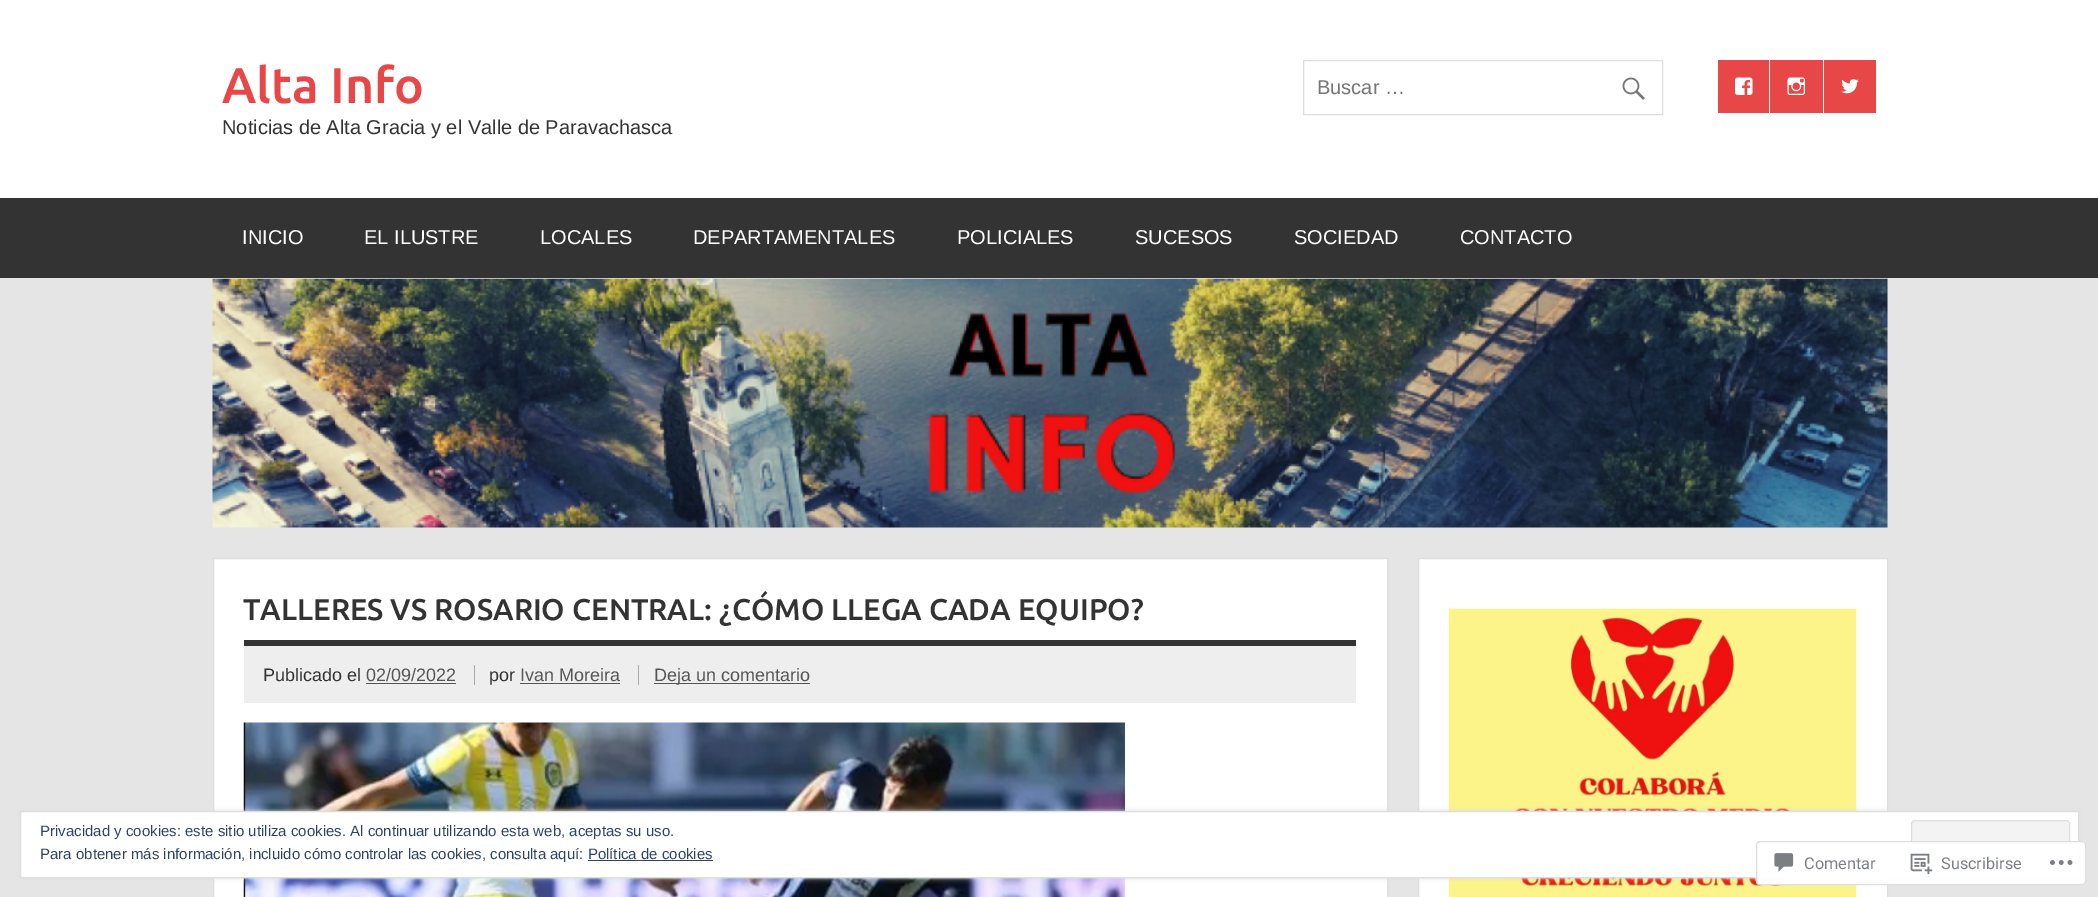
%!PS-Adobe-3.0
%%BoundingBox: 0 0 2098 897
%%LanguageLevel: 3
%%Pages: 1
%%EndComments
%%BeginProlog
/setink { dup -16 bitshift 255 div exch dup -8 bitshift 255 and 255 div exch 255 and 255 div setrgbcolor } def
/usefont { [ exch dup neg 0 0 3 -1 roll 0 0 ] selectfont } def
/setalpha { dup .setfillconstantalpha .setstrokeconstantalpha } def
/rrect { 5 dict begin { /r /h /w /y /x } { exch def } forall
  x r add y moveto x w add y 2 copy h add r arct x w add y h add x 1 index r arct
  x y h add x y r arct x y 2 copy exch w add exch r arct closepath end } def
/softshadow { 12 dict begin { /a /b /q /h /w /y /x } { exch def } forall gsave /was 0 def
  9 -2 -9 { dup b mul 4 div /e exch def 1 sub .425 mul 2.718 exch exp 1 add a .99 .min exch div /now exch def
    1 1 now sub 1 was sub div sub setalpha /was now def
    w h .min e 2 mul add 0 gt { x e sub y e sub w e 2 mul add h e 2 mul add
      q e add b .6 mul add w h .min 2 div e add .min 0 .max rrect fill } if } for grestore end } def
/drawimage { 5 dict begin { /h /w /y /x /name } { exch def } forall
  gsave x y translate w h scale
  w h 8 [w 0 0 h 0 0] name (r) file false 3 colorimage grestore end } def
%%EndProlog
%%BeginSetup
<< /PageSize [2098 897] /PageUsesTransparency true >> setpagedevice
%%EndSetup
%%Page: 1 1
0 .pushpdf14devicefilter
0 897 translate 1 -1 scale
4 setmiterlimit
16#E5E5E5 setink
0 0 2098 897 rectfill
16#FFFFFF setink
0 0 2098 198 rectfill
/Ubuntu-Medium 50 usefont
16#E84747 setink
222 103 moveto (Alta Info) show
/Arimo-Regular 20 usefont
16#333333 setink
222 134 moveto (Noticias de Alta Gracia y el Valle de Paravachasca) show
16#DDDDDD setink
1303.5 60.5 359 54 rectstroke
16#757575 setink
1317 94 moveto (Buscar …) show
(img1.raw) 1622 77 23 23 drawimage
16#E84747 setink
1718 60 51 53 rectfill
(img2.raw) 1735 77 18 18 drawimage
1770 60 53 53 rectfill
(img3.raw) 1787 77 18 18 drawimage
1824 60 52 53 rectfill
(img4.raw) 1841 79 18 15 drawimage
16#333333 setink
0 198 2098 80 rectfill
16#FFFFFF setink
[
    [(INICIO) 242 244]
    [(EL ILUSTRE) 364 244]
    [(LOCALES) 540 244]
    [(DEPARTAMENTALES) 693 244]
    [(POLICIALES) 957 244]
    [(SUCESOS) 1135 244]
    [(SOCIEDAD) 1294 244]
    [(CONTACTO) 1460 244]
] { aload pop moveto show } forall
(img5.raw) 212 278 1676 250 drawimage
213.5 558.5 moveto 1387.5 558.5 lineto 1387.5 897.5 lineto 213.5 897.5 lineto closepath gsave fill grestore
16#DDDDDD setink
stroke
16#333333 setink
244 640 1112 6 rectfill
/Ubuntu-Medium 30 usefont
243 620 moveto (TALLERES VS ROSARIO CENTRAL: ¿CÓMO LLEGA CADA EQUIPO?) show
16#EEEEEE setink
244 646 1112 57 rectfill
/Arimo-Regular 18 usefont
16#333333 setink
263 681 moveto (Publicado el) show
16#555555 setink
366 681 moveto (02/09/2022) show
366 683 90 1 rectfill
16#333333 setink
489 681 moveto (por) show
16#AAAAAA setink
474 665 1 20 rectfill
16#555555 setink
520 683 100 1 rectfill
520 681 moveto (Ivan Moreira) show
654 683 156 1 rectfill
654 681 moveto (Deja un comentario) show
16#AAAAAA setink
638 665 1 20 rectfill
(img6.raw) 243 722 882 175 drawimage
16#FFFFFF setink
1418.5 558.5 moveto 1887.5 558.5 lineto 1887.5 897.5 lineto 1418.5 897.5 lineto closepath gsave fill grestore
16#DDDDDD setink
stroke
(img7.raw) 1448 608 409 289 drawimage
20 811 2059 67 0 2.5 1 softshadow
16#FFFFFF setink
20.5 811.5 moveto 2078.5 811.5 lineto 2078.5 877.5 lineto 20.5 877.5 lineto closepath gsave fill grestore
16#DEDEDE setink
stroke
/Arimo-Regular 15 usefont
16#2E4467 setink
40 836 moveto (Privacidad y cookies: este sitio utiliza cookies. Al continuar utilizando esta web, aceptas su uso.) show
16#F3F3F3 setink
1911.5 820.5 158 48 3.5 rrect gsave fill grestore
16#DEDEDE setink
stroke
16#2E4467 setink
40 859 moveto (Para obtener más información, incluido cómo controlar las cookies, consulta aquí: Política de cookies) show
588 860 125 1 rectfill
0.98 setalpha
16#FFFFFF setink
1756 841 330 44 4 rrect fill
16#DCDCDE setink
1756.5 841.5 329 43 3.5 rrect stroke
1 setalpha
(img8.raw) 1774 853 20 19 drawimage
/Roboto-Regular 16.25 usefont
16#7B7F85 setink
1804 869 moveto (Comentar) show
(img9.raw) 1910 853 23 22 drawimage
1941 869 moveto (Suscribirse) show
(img10.raw) 2050 860 23 5 drawimage
.poppdf14devicefilter showpage
%%EOF
